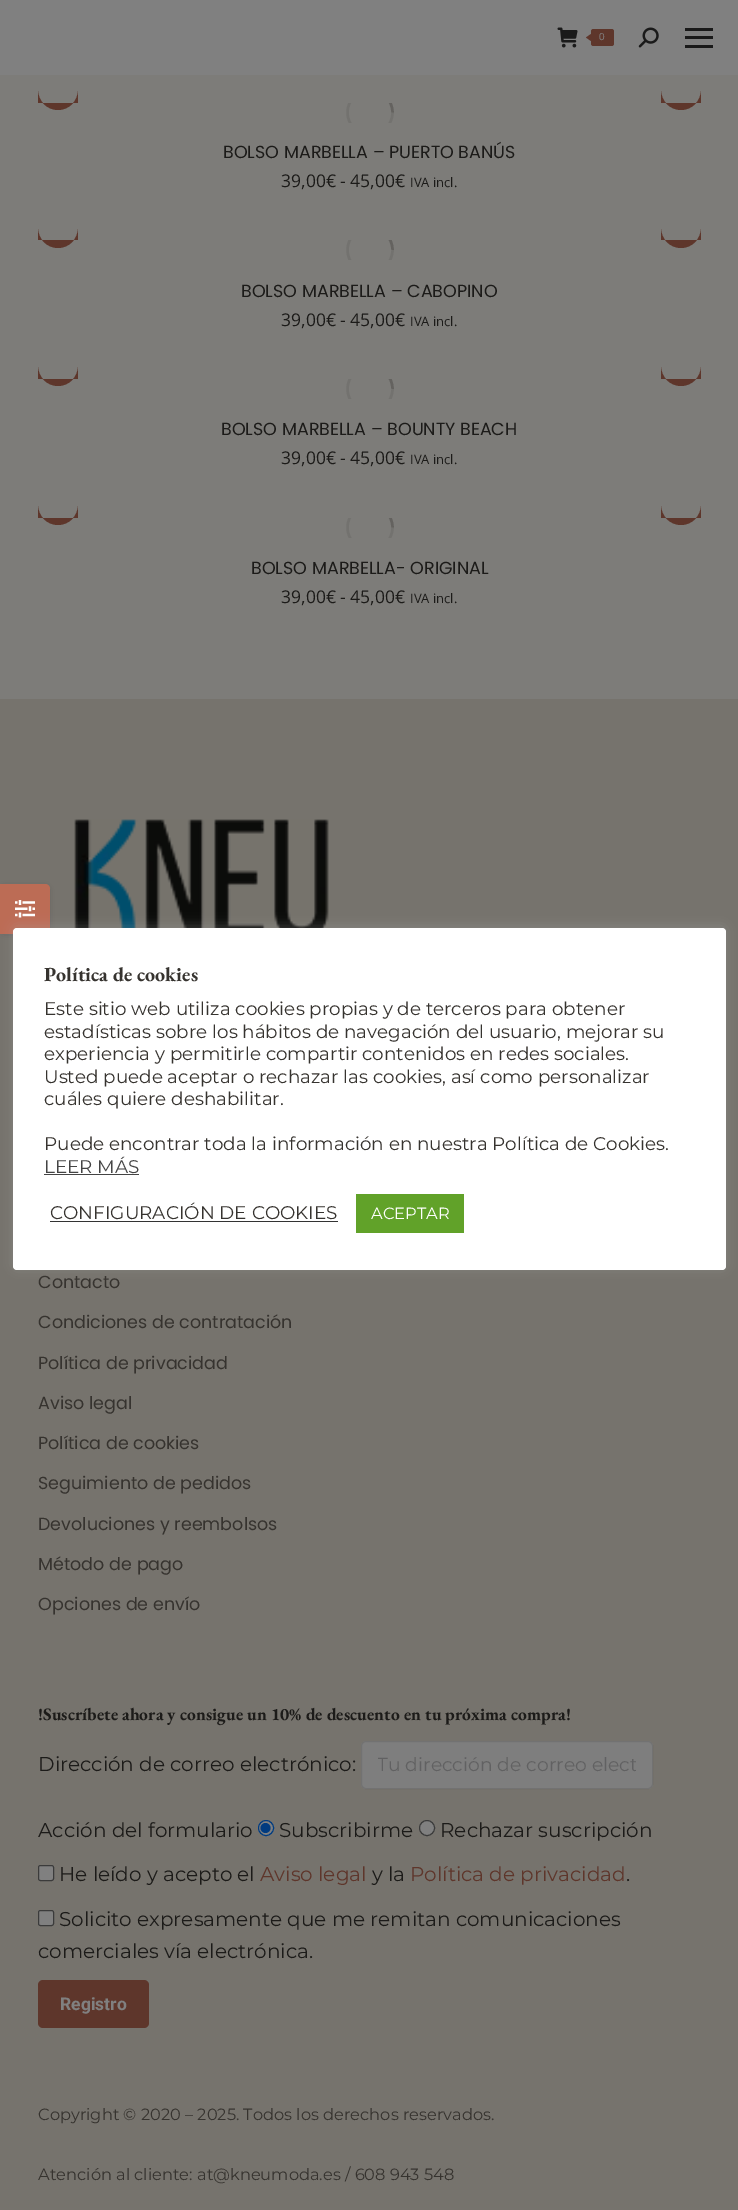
%!PS-Adobe-3.0
%%BoundingBox: 0 0 738 2210
%%LanguageLevel: 3
%%Pages: 1
%%EndComments
%%BeginProlog
/setink { dup -16 bitshift 255 div exch dup -8 bitshift 255 and 255 div exch 255 and 255 div setrgbcolor } def
/usefont { [ exch dup neg 0 0 3 -1 roll 0 0 ] selectfont } def
/setalpha { dup .setfillconstantalpha .setstrokeconstantalpha } def
/disc { newpath 0 360 arc closepath } def
/rrect { 5 dict begin { /r /h /w /y /x } { exch def } forall
  x r add y moveto x w add y 2 copy h add r arct x w add y h add x 1 index r arct
  x y h add x y r arct x y 2 copy exch w add exch r arct closepath end } def
/softshadow { 12 dict begin { /a /b /q /h /w /y /x } { exch def } forall gsave /was 0 def
  9 -2 -9 { dup b mul 4 div /e exch def 1 sub .425 mul 2.718 exch exp 1 add a .99 .min exch div /now exch def
    1 1 now sub 1 was sub div sub setalpha /was now def
    w h .min e 2 mul add 0 gt { x e sub y e sub w e 2 mul add h e 2 mul add
      q e add b .6 mul add w h .min 2 div e add .min 0 .max rrect fill } if } for grestore end } def
/drawimage { 5 dict begin { /h /w /y /x /name } { exch def } forall
  gsave x y translate w h scale
  w h 8 [w 0 0 h 0 0] name (r) file false 3 colorimage grestore end } def
%%EndProlog
%%BeginSetup
<< /PageSize [738 2210] /PageUsesTransparency true >> setpagedevice
%%EndSetup
%%Page: 1 1
0 .pushpdf14devicefilter
0 2210 translate 1 -1 scale
4 setmiterlimit
16#7D7C79 setink
0 0 738 2210 rectfill
16#808080 setink
0 0 738 75 rectfill
(img1.raw) 557 27 21 21 drawimage
16#5E362B setink
591 29 23 17 2.5 rrect fill
591 34 moveto 591 41 lineto 586 37.5 lineto closepath fill
/LiberationSans-Regular 10 usefont
16#808080 setink
599 40 moveto (0) show
(img2.raw) 638 27 21 21 drawimage
[
    [685 28 28 3 16#1A1A1A]
    [685 36 28 3 16#1A1A1A]
    [685 45 28 3 16#1A1A1A]
] { aload pop setink rectfill } forall
16#5E362B setink
38 103 moveto 78 103 lineto 78 90 lineto 78 101 69 110 58 110 curveto 47 110 38 101 38 90 curveto closepath fill
gsave
346 103 48 20 rectclip
16#73726F setink
2.5 setlinewidth
370 112.5 22.5 disc stroke
0.25 setalpha
16#36332F setink
392.5 112.5 moveto 392.5 100 382.5 90 370 90 curveto stroke
grestore
661 103 moveto 701 103 lineto 701 90 lineto 701 101 692 110 681 110 curveto 670 110 661 101 661 90 curveto closepath fill
/Poppins-Regular 17.5 usefont
16#1C1B19 setink
223 158 moveto (BOLSO MARBELLA – PUERTO BANÚS) show
/OpenSans-Regular 17.5 usefont
281 187 moveto (39,00€ - 45,00€) show
/OpenSans-Regular 13 usefont
410 187 moveto (IVA incl.) show
16#5E362B setink
38 240 moveto 78 240 lineto 78 228 lineto 78 239 69 248 58 248 curveto 47 248 38 239 38 228 curveto closepath fill
gsave
346 240 48 20 rectclip
16#73726F setink
2.5 setlinewidth
370 250 22.5 disc stroke
0.25 setalpha
16#36332F setink
392.5 250 moveto 392.5 237.5 382.5 227.5 370 227.5 curveto stroke
grestore
661 240 moveto 701 240 lineto 701 228 lineto 701 239 692 248 681 248 curveto 670 248 661 239 661 228 curveto closepath fill
/Poppins-Regular 17.5 usefont
16#1C1B19 setink
241 297 moveto (BOLSO MARBELLA – CABOPINO) show
/OpenSans-Regular 17.5 usefont
281 326 moveto (39,00€ - 45,00€) show
/OpenSans-Regular 13 usefont
410 326 moveto (IVA incl.) show
16#5E362B setink
38 379 moveto 78 379 lineto 78 366 lineto 78 377 69 386 58 386 curveto 47 386 38 377 38 366 curveto closepath fill
gsave
346 379 48 20 rectclip
16#73726F setink
2.5 setlinewidth
370 389 22.5 disc stroke
0.25 setalpha
16#36332F setink
392.5 389 moveto 392.5 376.5 382.5 366 370 366 curveto stroke
grestore
661 379 moveto 701 379 lineto 701 366 lineto 701 377 692 386 681 386 curveto 670 386 661 377 661 366 curveto closepath fill
/Poppins-Regular 17.5 usefont
16#1C1B19 setink
221 435 moveto (BOLSO MARBELLA – BOUNTY BEACH) show
/OpenSans-Regular 17.5 usefont
281 464 moveto (39,00€ - 45,00€) show
/OpenSans-Regular 13 usefont
410 464 moveto (IVA incl.) show
16#5E362B setink
38 518 moveto 78 518 lineto 78 505 lineto 78 516 69 525 58 525 curveto 47 525 38 516 38 505 curveto closepath fill
gsave
346 518 48 20 rectclip
16#73726F setink
2.5 setlinewidth
370 527.5 22.5 disc stroke
0.25 setalpha
16#36332F setink
392.5 527.5 moveto 392.5 515 382.5 505 370 505 curveto stroke
grestore
661 518 moveto 701 518 lineto 701 505 lineto 701 516 692 525 681 525 curveto 670 525 661 516 661 505 curveto closepath fill
/Poppins-Regular 17.5 usefont
16#1C1B19 setink
251 574 moveto (BOLSO MARBELLA- ORIGINAL) show
/OpenSans-Regular 17.5 usefont
281 603 moveto (39,00€ - 45,00€) show
/OpenSans-Regular 13 usefont
410 603 moveto (IVA incl.) show
16#76736D setink
0 699 738 1511 rectfill
16#000000 setink
0 885 50 50 5 4 0.12 softshadow
16#BC6C55 setink
0 884 moveto 45 884 lineto 48 884 50 886 50 889 curveto 50 929 lineto 50 932 48 934 45 934 curveto 0 934 lineto closepath fill
(img3.raw) 15 900 20 18 drawimage
(img4.raw) 74 819 255 109 drawimage
/Poppins-Regular 17.5 usefont
16#36332F setink
[
    [(Contacto) 38 1288]
    [(Condiciones de contratación) 38 1328]
    [(Política de privacidad) 38 1369]
    [(Aviso legal) 38 1409]
    [(Política de cookies) 38 1449]
    [(Seguimiento de pedidos) 38 1489]
    [(Devoluciones y reembolsos) 38 1530]
    [(Método de pago) 38 1570]
    [(Opciones de envío) 38 1610]
] { aload pop moveto show } forall
/EBGaramond-Bold 17.5 usefont
16#1C1B19 setink
38 1720 moveto (!Suscríbete ahora y consigue un 10% de descuento en tu próxima compra!) show
/Montserrat-Regular 20 usefont
38 1771 moveto (Dirección de correo electrónico:) show
16#7E7E7E setink
361 1741 292 48 5 rrect fill
0.12 setalpha
16#1A1A1A setink
361.5 1741.5 291 47 4.5 rrect stroke
gsave
378 1753 258 23 rectclip
/Montserrat-Regular 18.75 usefont
1 setalpha
16#616162 setink
377 1771 moveto (Tu dirección de correo elect) show
grestore
1 setalpha
16#1C1B19 setink
38 1837 moveto (Acción del formulario) show
16#808080 setink
266 1828 7.5 disc gsave fill grestore
16#003B80 setink
stroke
265.5 1828 5 disc fill
16#1C1B19 setink
279 1837 moveto (Subscribirme) show
16#808080 setink
427 1828 7.5 disc gsave fill grestore
16#3B3B3B setink
stroke
16#1C1B19 setink
440 1837 moveto (Rechazar suscripción) show
16#808080 setink
38.5 1865.5 15 15 2 rrect gsave fill grestore
16#3B3B3B setink
stroke
16#1C1B19 setink
59 1881 moveto (He leído y acepto el) show
16#5E362B setink
260 1881 moveto (Aviso legal) show
16#1C1B19 setink
372 1881 moveto (y la) show
16#5E362B setink
410 1881 moveto (Política de privacidad) show
16#1C1B19 setink
626 1881 moveto (.) show
16#808080 setink
38.5 1910.5 15 15 2 rrect gsave fill grestore
16#3B3B3B setink
stroke
16#1C1B19 setink
59 1926 moveto (Solicito expresamente que me remitan comunicaciones) show
38 1958 moveto (comerciales vía electrónica.) show
16#5E362B setink
38 1980 111 48 5 rrect fill
/Roboto-Bold 17.5 usefont
16#808080 setink
60 2010 moveto (Registro) show
/Montserrat-Regular 16.25 usefont
16#36332F setink
38 2120 moveto (Copyright © 2020 – 2025. Todos los derechos reservados.) show
38 2180 moveto (Atención al cliente: at@kneumoda.es / 608 943 548) show
16#ACABAB setink
13 926 713 343 4 6 0.3 softshadow
16#FFFFFF setink
13 928 713 342 4 rrect fill
/EBGaramond-Bold 20 usefont
16#36332F setink
44 981 moveto (Política de cookies) show
/Montserrat-Regular 18.35 usefont
[
    [(Este sitio web utiliza cookies propias y de terceros para obtener) 44 1015]
    [(estadísticas sobre los hábitos de navegación del usuario, mejorar su) 44 1038]
    [(experiencia y permitirle compartir contenidos en redes sociales.) 44 1060]
    [(Usted puede aceptar o rechazar las cookies, así como personalizar) 44 1083]
    [(cuáles quiere deshabilitar.) 44 1105]
    [(Puede encontrar toda la información en nuestra Política de Cookies.) 44 1150]
] { aload pop moveto show } forall
16#444444 setink
44 1173 moveto (LEER MÁS) show
44 1174 95 1 rectfill
16#36332F setink
50 1219 moveto (CONFIGURACIÓN DE COOKIES) show
16#333333 setink
50 1221 288 1 rectfill
16#61A229 setink
356 1194 108 39 rectfill
/Montserrat-Regular 16.25 usefont
16#FFFFFF setink
371 1219 moveto (ACEPTAR) show
.poppdf14devicefilter showpage
%%EOF
